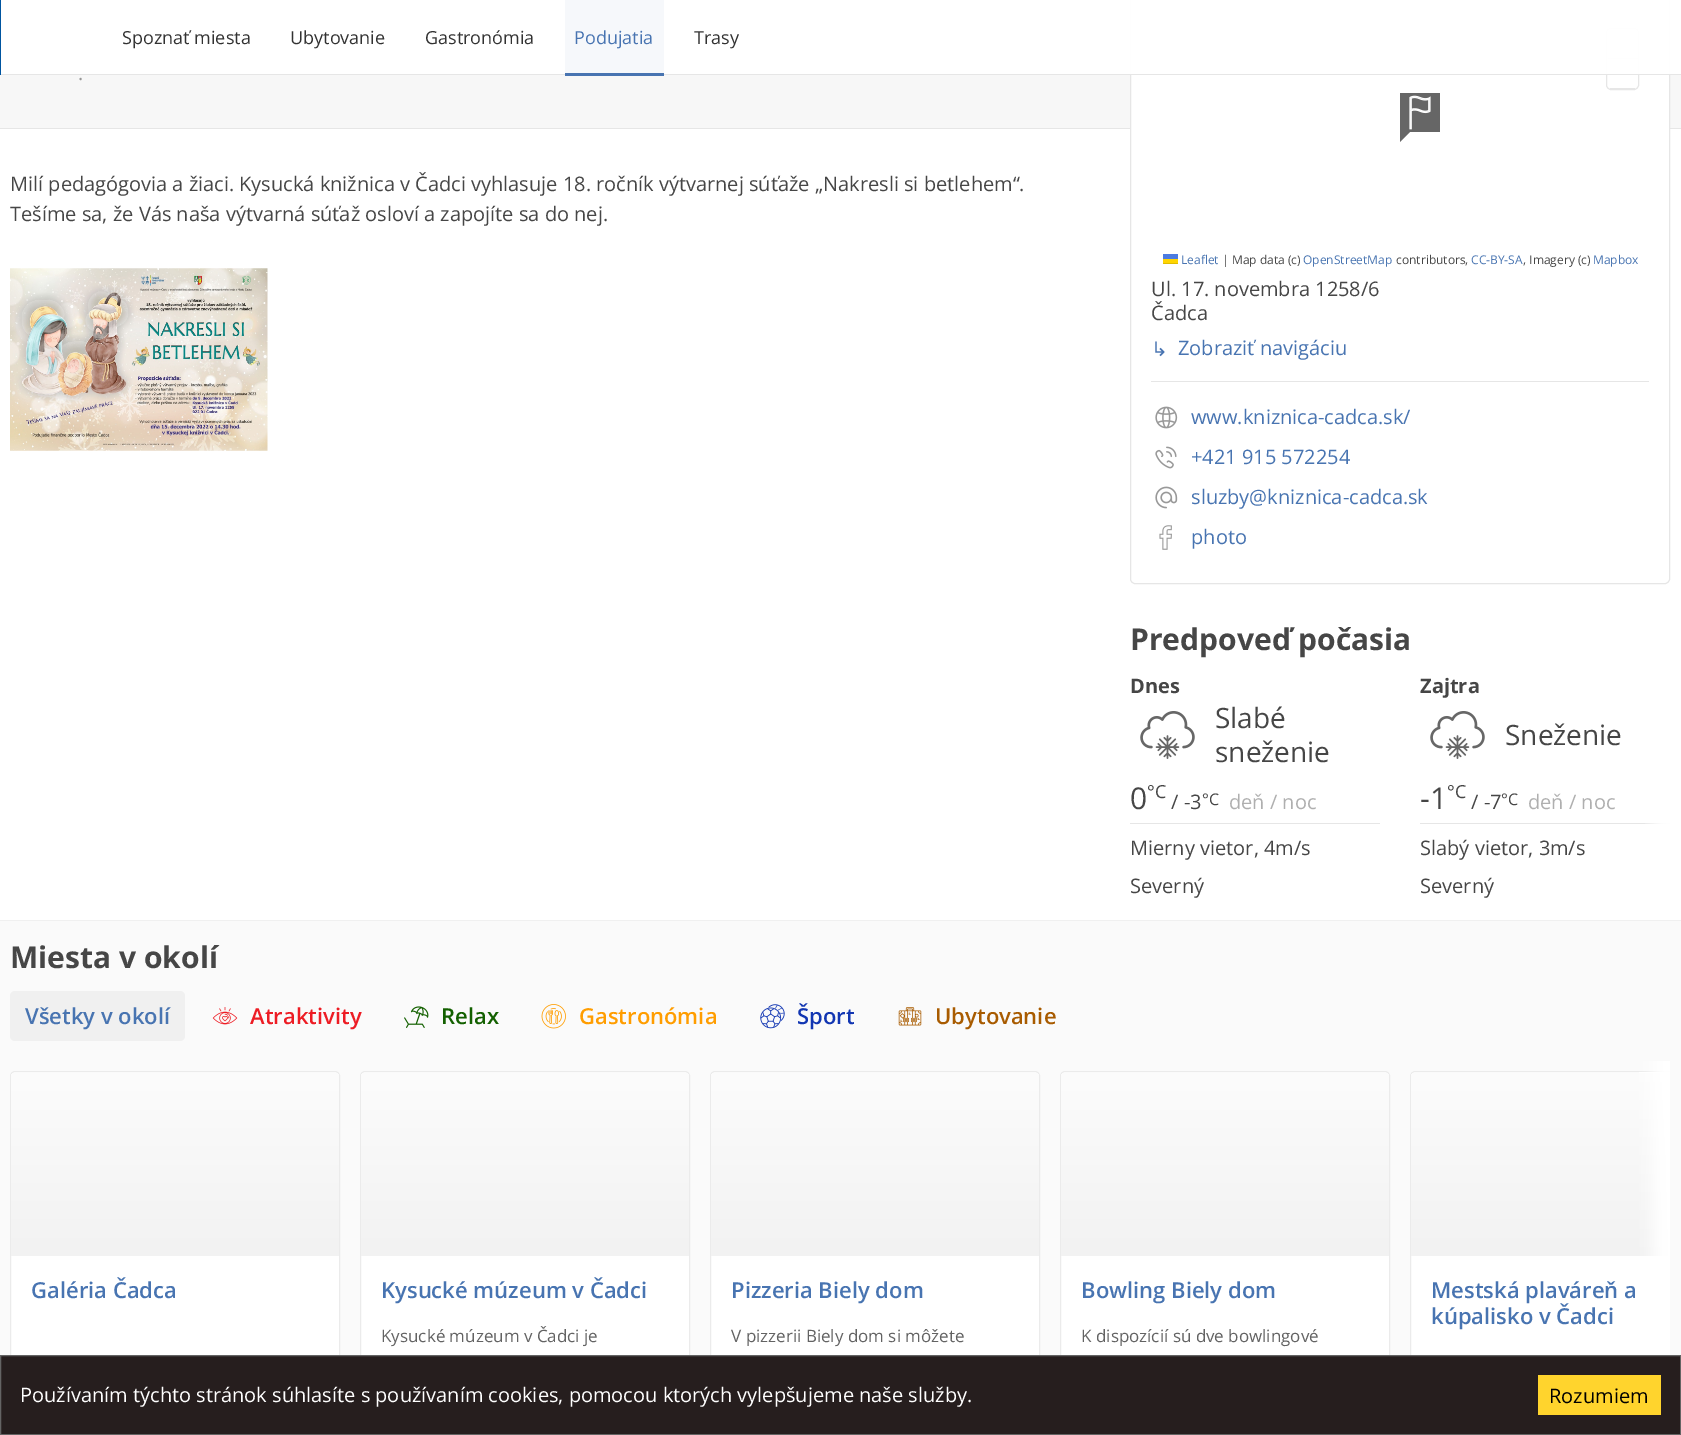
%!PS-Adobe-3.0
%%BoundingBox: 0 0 1681 1435
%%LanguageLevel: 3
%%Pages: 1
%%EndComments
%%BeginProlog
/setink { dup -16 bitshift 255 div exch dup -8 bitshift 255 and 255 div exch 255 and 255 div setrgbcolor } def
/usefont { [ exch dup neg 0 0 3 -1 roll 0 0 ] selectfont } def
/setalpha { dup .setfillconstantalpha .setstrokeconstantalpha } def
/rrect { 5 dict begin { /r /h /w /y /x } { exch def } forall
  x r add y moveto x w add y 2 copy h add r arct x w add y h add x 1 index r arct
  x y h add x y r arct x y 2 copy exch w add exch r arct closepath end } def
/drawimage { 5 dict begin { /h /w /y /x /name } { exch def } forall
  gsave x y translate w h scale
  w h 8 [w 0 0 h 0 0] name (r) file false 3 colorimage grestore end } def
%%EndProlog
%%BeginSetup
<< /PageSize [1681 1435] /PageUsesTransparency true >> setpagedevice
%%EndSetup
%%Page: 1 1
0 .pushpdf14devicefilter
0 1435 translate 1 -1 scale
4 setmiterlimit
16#FFFFFF setink
0 0 1681 1435 rectfill
16#F7F7F7 setink
0 0 1681 128 rectfill
16#E6E6E6 setink
0 128 1681 1 rectfill
16#FFFFFF setink
1130.5 -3.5 539 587 4.5 rrect gsave fill grestore
16#E6E6E6 setink
stroke
1606.5 28.5 32 61 4.5 rrect stroke
[
    [1608 58 30 1 16#E6E6E6]
] { aload pop setink rectfill } forall
0.97 setalpha
[
    [1 0 1680 74 16#FFFFFF]
] { aload pop setink rectfill } forall
1 setalpha
[
    [0 0 1 75 16#0055A0]
    [1 74 1680 1 16#E6E6E6]
] { aload pop setink rectfill } forall
/OpenSans-Regular 18 usefont
16#323232 setink
[
    [(Spoznať miesta) 122 44]
    [(Ubytovanie) 290 44]
    [(Gastronómia) 425 44]
] { aload pop moveto show } forall
0.05 setalpha
16#4874B1 setink
565 0 99 73 rectfill
1 setalpha
565 73 99 3 rectfill
574 44 moveto (Podujatia) show
16#323232 setink
694 44 moveto (Trasy) show
/OpenSans-Regular 20 usefont
16#969696 setink
78 80 moveto (.) show
16#464646 setink
10 191 moveto (Milí pedagógovia a žiaci. Kysucká knižnica v Čadci vyhlasuje 18. ročník výtvarnej súťaže „Nakresli si betlehem“.) show
10 221 moveto (Tešíme sa, že Vás naša výtvarná súťaž osloví a zapojíte sa do nej.) show
(img1.raw) 10 268 258 183 drawimage
gsave
1400 93 40 50 rectclip
16#666666 setink
1440 132 moveto 1440 92 lineto 1400 92 lineto 1400 142 lineto 1410 132 lineto closepath fill
grestore
(img2.raw) 1409 95 22 35 drawimage
16#E6E6E6 setink
1610 88 25 1 rectfill
/OpenSans-Regular 12 usefont
16#4874B1 setink
1181 264 moveto (Leaflet) show
[
    [1163 254 15 5 16#4C7BE1]
    [1163 259 15 4 16#FFD500]
    [1163 263 15 1 16#E0BC00]
] { aload pop setink rectfill } forall
16#464646 setink
1222 264 moveto (| Map data \(c\)) show
16#4874B1 setink
1303 264 moveto (OpenStreetMap) show
16#464646 setink
1396 264 moveto (contributors,) show
16#4874B1 setink
1471 264 moveto (CC-BY-SA) show
16#464646 setink
1523 264 moveto (, Imagery \(c\)) show
16#4874B1 setink
1593 264 moveto (Mapbox) show
/OpenSans-Regular 20 usefont
16#464646 setink
1151 296 moveto (Ul. 17. novembra 1258/6) show
1151 320 moveto (Čadca) show
/DejaVuSans-Regular 20 usefont
16#4874B1 setink
1151 356 moveto (↳) show
/OpenSans-Regular 20 usefont
1178 355 moveto (Zobraziť navigáciu) show
16#E6E6E6 setink
1151 381 498 1 rectfill
(img3.raw) 1155 406 23 23 drawimage
16#4874B1 setink
1191 424 moveto (www.kniznica-cadca.sk/) show
(img4.raw) 1155 446 22 23 drawimage
1191 464 moveto (+421 915 572254) show
(img5.raw) 1155 486 23 23 drawimage
1191 504 moveto (sluzby@kniznica-cadca.sk) show
(img6.raw) 1159 525 13 25 drawimage
1191 544 moveto (photo) show
/OpenSans-Bold 30 usefont
16#464646 setink
1130 650 moveto (Predpoveď počasia) show
/OpenSans-Bold 20 usefont
1130 693 moveto (Dnes) show
(img7.raw) 1140 711 55 48 drawimage
/OpenSans-Regular 28 usefont
1215 728 moveto (Slabé) show
1215 762 moveto (sneženie) show
/OpenSans-Regular 30 usefont
1130 809 moveto (0) show
/OpenSans-Regular 18 usefont
1147 798 moveto (°C) show
/OpenSans-Regular 20 usefont
1171 809 moveto (/ -3) show
/OpenSans-Regular 16 usefont
1202 805 moveto (°C) show
/OpenSans-Regular 20 usefont
16#AFAFAF setink
1229 809 moveto (deň / noc) show
16#E6E6E6 setink
1130 823 250 1 rectfill
16#464646 setink
1130 855 moveto (Mierny vietor, 4m/s) show
1130 893 moveto (Severný) show
/OpenSans-Bold 20 usefont
1420 693 moveto (Zajtra) show
(img7.raw) 1430 711 55 48 drawimage
/OpenSans-Regular 28 usefont
1505 745 moveto (Sneženie) show
/OpenSans-Regular 30 usefont
1420 809 moveto (-1) show
/OpenSans-Regular 18 usefont
1447 798 moveto (°C) show
/OpenSans-Regular 20 usefont
1471 809 moveto (/ -7) show
/OpenSans-Regular 16 usefont
1501 805 moveto (°C) show
/OpenSans-Regular 20 usefont
16#AFAFAF setink
1528 809 moveto (deň / noc) show
16#E6E6E6 setink
1420 823 250 1 rectfill
16#464646 setink
1420 855 moveto (Slabý vietor, 3m/s) show
1420 893 moveto (Severný) show
(img8.raw) 1645 823 25 1 drawimage
16#FAFAFA setink
0 921 1680 434 rectfill
16#F0F0F0 setink
0 920 1680 1 rectfill
/OpenSans-Bold 30 usefont
16#464646 setink
10 968 moveto (Miesta v okolí) show
16#F0F0F0 setink
10 991 175 50 5 rrect fill
/OpenSans-SemiBold 22 usefont
16#4874B1 setink
25 1024 moveto (Všetky v okolí) show
(img9.raw) 212 1007 26 18 drawimage
16#ED1C24 setink
250 1024 moveto (Atraktivity) show
(img10.raw) 404 1006 25 22 drawimage
16#136000 setink
441 1024 moveto (Relax) show
(img11.raw) 541 1004 25 25 drawimage
16#FF9D00 setink
579 1024 moveto (Gastronómia) show
(img12.raw) 760 1004 25 25 drawimage
16#1236B2 setink
797 1024 moveto (Šport) show
(img13.raw) 898 1007 24 19 drawimage
16#A85B00 setink
935 1024 moveto (Ubytovanie) show
16#FFFFFF setink
10.5 1071.5 329 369 4.5 rrect gsave fill grestore
16#EBEBEB setink
stroke
gsave 16 1073 moveto 334 1073 lineto 337 1073 339 1075 339 1078 curveto 339 1256 lineto 11 1256 lineto 11 1078 lineto 11 1075 13 1073 16 1073 curveto closepath clip newpath
<< /ShadingType 2 /ColorSpace /DeviceRGB /Coords [175 1073 175 1256] /Extend [true true] /Function << /FunctionType 2 /Domain [0 1] /C0 [0.988 0.988 0.988] /C1 [0.949 0.949 0.949] /N 1 >> >> shfill grestore
16#4874B1 setink
31 1298 moveto (Galéria Čadca) show
16#FFFFFF setink
360.5 1071.5 329 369 4.5 rrect gsave fill grestore
16#EBEBEB setink
stroke
gsave 366 1073 moveto 684 1073 lineto 687 1073 689 1075 689 1078 curveto 689 1256 lineto 361 1256 lineto 361 1078 lineto 361 1075 363 1073 366 1073 curveto closepath clip newpath
<< /ShadingType 2 /ColorSpace /DeviceRGB /Coords [525 1073 525 1256] /Extend [true true] /Function << /FunctionType 2 /Domain [0 1] /C0 [0.988 0.988 0.988] /C1 [0.949 0.949 0.949] /N 1 >> >> shfill grestore
16#4874B1 setink
381 1298 moveto (Kysucké múzeum v Čadci) show
/OpenSans-Regular 17 usefont
16#636363 setink
381 1342 moveto (Kysucké múzeum v Čadci je) show
16#FFFFFF setink
710.5 1071.5 329 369 4.5 rrect gsave fill grestore
16#EBEBEB setink
stroke
gsave 716 1073 moveto 1034 1073 lineto 1037 1073 1039 1075 1039 1078 curveto 1039 1256 lineto 711 1256 lineto 711 1078 lineto 711 1075 713 1073 716 1073 curveto closepath clip newpath
<< /ShadingType 2 /ColorSpace /DeviceRGB /Coords [875 1073 875 1256] /Extend [true true] /Function << /FunctionType 2 /Domain [0 1] /C0 [0.988 0.988 0.988] /C1 [0.949 0.949 0.949] /N 1 >> >> shfill grestore
/OpenSans-SemiBold 22 usefont
16#4874B1 setink
731 1298 moveto (Pizzeria Biely dom) show
/OpenSans-Regular 17 usefont
16#636363 setink
731 1342 moveto (V pizzerii Biely dom si môžete) show
16#FFFFFF setink
1060.5 1071.5 329 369 4.5 rrect gsave fill grestore
16#EBEBEB setink
stroke
gsave 1066 1073 moveto 1384 1073 lineto 1387 1073 1389 1075 1389 1078 curveto 1389 1256 lineto 1061 1256 lineto 1061 1078 lineto 1061 1075 1063 1073 1066 1073 curveto closepath clip newpath
<< /ShadingType 2 /ColorSpace /DeviceRGB /Coords [1225 1073 1225 1256] /Extend [true true] /Function << /FunctionType 2 /Domain [0 1] /C0 [0.988 0.988 0.988] /C1 [0.949 0.949 0.949] /N 1 >> >> shfill grestore
/OpenSans-SemiBold 22 usefont
16#4874B1 setink
1081 1298 moveto (Bowling Biely dom) show
/OpenSans-Regular 17 usefont
16#636363 setink
1081 1342 moveto (K dispozícií sú dve bowlingové) show
16#FFFFFF setink
1415 1071 moveto 1670 1071 lineto 1670 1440 lineto 1415 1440 lineto 1412 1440 1410 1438 1410 1435 curveto 1410 1076 lineto 1410 1073 1412 1071 1415 1071 curveto closepath fill
gsave
10 1061 1660 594 rectclip
16#EBEBEB setink
1410.5 1071.5 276 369 4.5 rrect stroke
grestore
gsave 1416 1073 moveto 1670 1073 lineto 1670 1256 lineto 1411 1256 lineto 1411 1078 lineto 1411 1075 1413 1073 1416 1073 curveto closepath clip newpath
<< /ShadingType 2 /ColorSpace /DeviceRGB /Coords [1575 1073 1575 1256] /Extend [true true] /Function << /FunctionType 2 /Domain [0 1] /C0 [0.988 0.988 0.988] /C1 [0.949 0.949 0.949] /N 1 >> >> shfill grestore
/OpenSans-SemiBold 22 usefont
16#4874B1 setink
1431 1298 moveto (Mestská plaváreň a) show
1431 1324 moveto (kúpalisko v Čadci) show
(img14.raw) 1639 1061 31 294 drawimage
16#FAFAFA setink
1680 920 1 435 rectfill
16#F0F0F0 setink
1680 920 1 1 rectfill
16#261E1E setink
0.5 1355.5 moveto 1680.5 1355.5 lineto 1680.5 1434.5 lineto 0.5 1434.5 lineto closepath gsave fill grestore
16#646464 setink
stroke
/OpenSans-Regular 20 usefont
16#FFFFFF setink
20 1402 moveto (Používaním týchto stránok súhlasíte s používaním cookies, pomocou ktorých vylepšujeme naše služby.) show
16#FFD42D setink
1538 1375 123 40 rectfill
16#000000 setink
1549 1403 moveto (Rozumiem) show
.poppdf14devicefilter showpage
%%EOF
